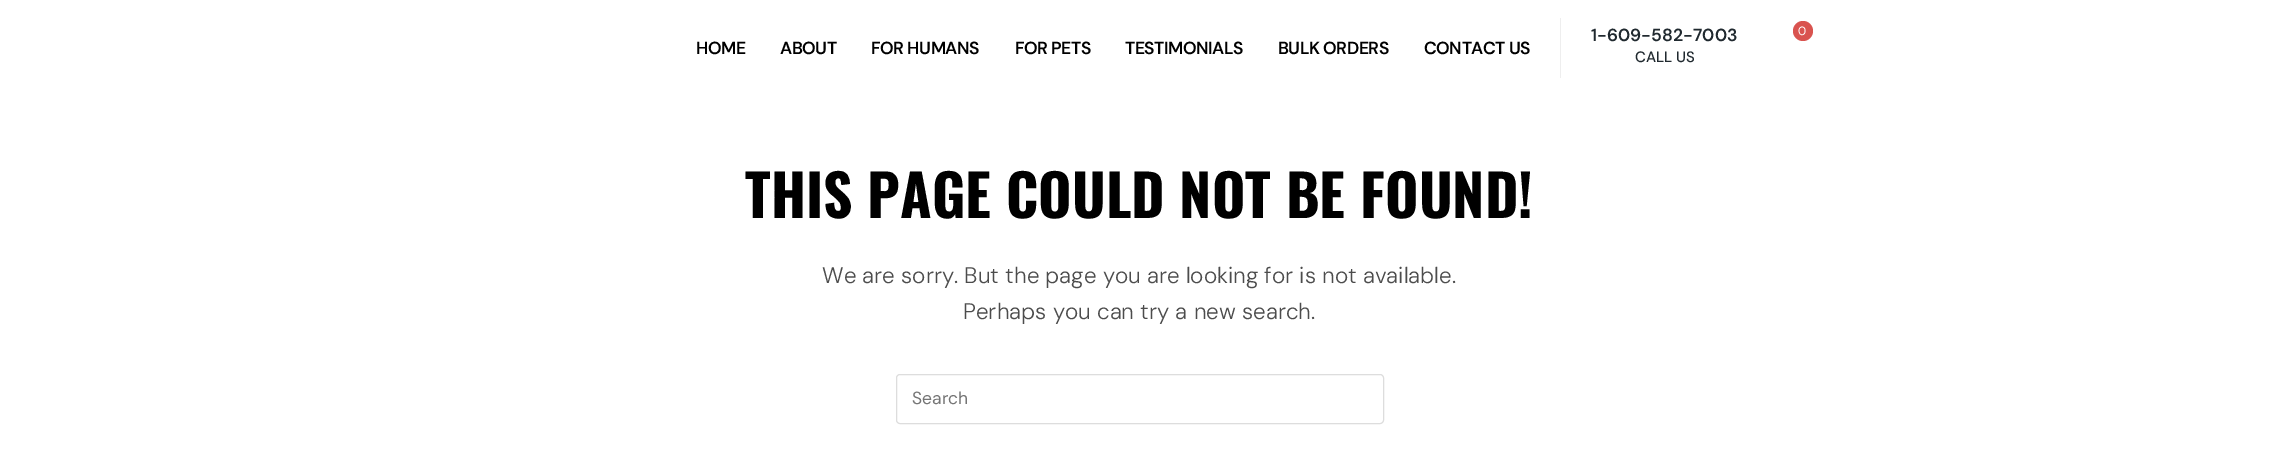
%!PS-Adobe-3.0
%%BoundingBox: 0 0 2278 473
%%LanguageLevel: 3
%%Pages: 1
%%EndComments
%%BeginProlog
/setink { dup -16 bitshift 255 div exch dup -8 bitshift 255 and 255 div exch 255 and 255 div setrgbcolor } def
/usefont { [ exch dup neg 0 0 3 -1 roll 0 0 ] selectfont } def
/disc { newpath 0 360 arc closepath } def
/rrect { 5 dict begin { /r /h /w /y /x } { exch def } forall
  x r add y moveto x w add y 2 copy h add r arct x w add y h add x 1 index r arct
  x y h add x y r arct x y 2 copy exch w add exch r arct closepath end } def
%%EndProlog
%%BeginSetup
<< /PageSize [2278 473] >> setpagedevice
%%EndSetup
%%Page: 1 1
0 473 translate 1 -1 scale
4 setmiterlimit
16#FFFFFF setink
0 0 2278 473 rectfill
16#EEEEEE setink
1560 18 1 60 rectfill
/DMSans-SemiBold 17.5 usefont
16#000000 setink
696 54 moveto -0.5 0 (HOME) ashow
780 54 moveto -0.5 0 (ABOUT) ashow
871 54 moveto -0.5 0 (FOR HUMANS) ashow
1015 54 moveto -0.5 0 (FOR PETS) ashow
1125 54 moveto -0.5 0 (TESTIMONIALS) ashow
1278 54 moveto -0.5 0 (BULK ORDERS) ashow
1424 54 moveto -0.5 0 (CONTACT US) ashow
16#20292F setink
1591 41 moveto (1-609-582-7003) show
/DMSans-Medium 15 usefont
1635 62 moveto (CALL US) show
16#D9534F setink
1803 31 10 disc fill
/DMSans-Regular 12 usefont
16#FFFFFF setink
1798 35 moveto (0) show
/Oswald-Bold 57.5 usefont
16#000000 setink
745 218 moveto (THIS PAGE COULD NOT BE FOUND!) show
/DMSans-Light 22.5 usefont
16#4C4C4C setink
822 283 moveto (We are sorry. But the page you are looking for is not available.) show
963 319 moveto (Perhaps you can try a new search.) show
16#DDDDDD setink
896.5 374.5 487 49 3.5 rrect stroke
/DMSans-Regular 17.5 usefont
16#757575 setink
912 404 moveto (Search) show
showpage
%%EOF
